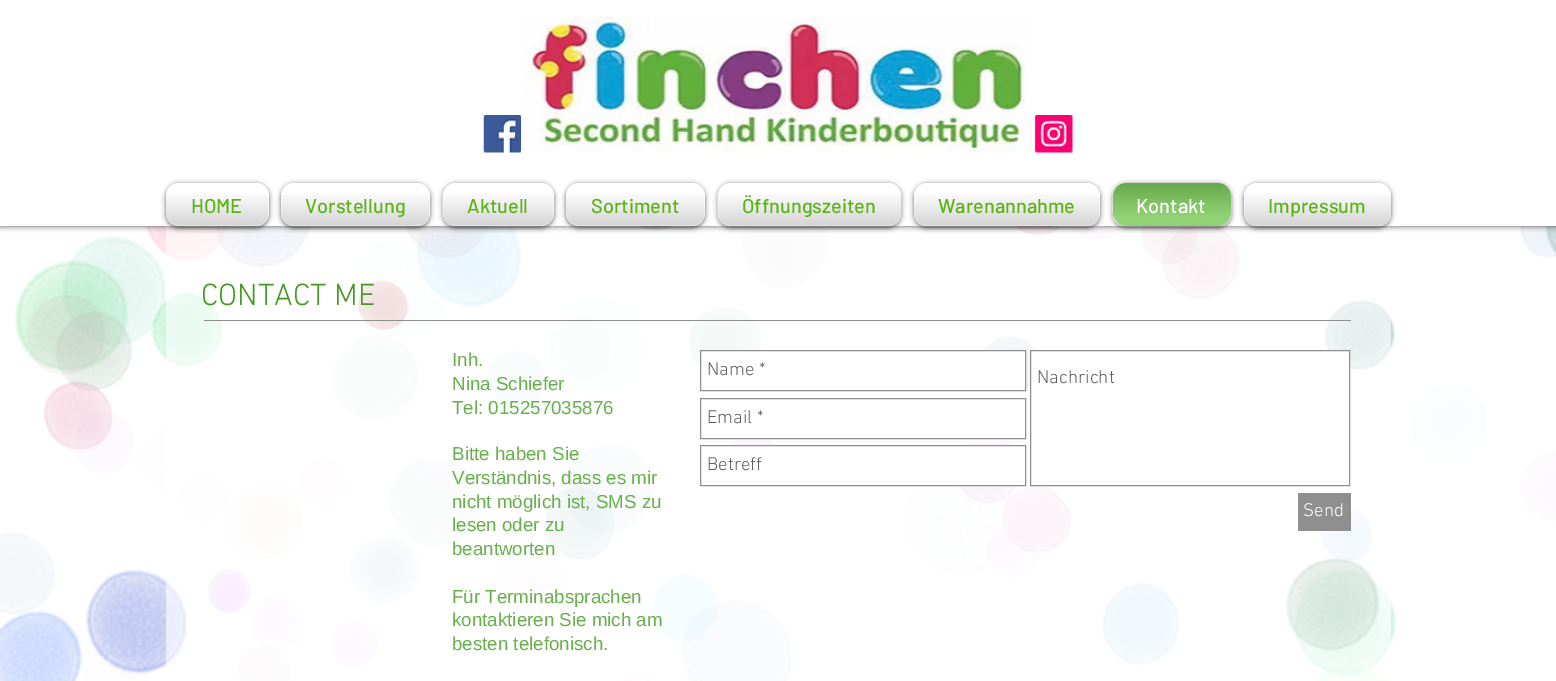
%!PS-Adobe-3.0
%%BoundingBox: 0 0 1556 681
%%LanguageLevel: 3
%%Pages: 1
%%EndComments
%%BeginProlog
/setink { dup -16 bitshift 255 div exch dup -8 bitshift 255 and 255 div exch 255 and 255 div setrgbcolor } def
/usefont { [ exch dup neg 0 0 3 -1 roll 0 0 ] selectfont } def
/setalpha { dup .setfillconstantalpha .setstrokeconstantalpha } def
/rrect { 5 dict begin { /r /h /w /y /x } { exch def } forall
  x r add y moveto x w add y 2 copy h add r arct x w add y h add x 1 index r arct
  x y h add x y r arct x y 2 copy exch w add exch r arct closepath end } def
/softshadow { 12 dict begin { /a /b /q /h /w /y /x } { exch def } forall gsave /was 0 def
  9 -2 -9 { dup b mul 4 div /e exch def 1 sub .425 mul 2.718 exch exp 1 add a .99 .min exch div /now exch def
    1 1 now sub 1 was sub div sub setalpha /was now def
    w h .min e 2 mul add 0 gt { x e sub y e sub w e 2 mul add h e 2 mul add
      q e add b .6 mul add w h .min 2 div e add .min 0 .max rrect fill } if } for grestore end } def
/drawimage { 5 dict begin { /h /w /y /x /name } { exch def } forall
  gsave x y translate w h scale
  w h 8 [w 0 0 h 0 0] name (r) file false 3 colorimage grestore end } def
%%EndProlog
%%BeginSetup
<< /PageSize [1556 681] /PageUsesTransparency true >> setpagedevice
%%EndSetup
%%Page: 1 1
0 .pushpdf14devicefilter
0 681 translate 1 -1 scale
4 setmiterlimit
16#FFFFFF setink
0 0 1556 681 rectfill
(img13.raw) 0 226 1556 455 drawimage
0.6 setalpha
166 226 1225 455 rectfill
1 setalpha
16#000000 setink
0 0 1556 226 0 3 0.7 softshadow
16#FFFFFF setink
0 0 1556 226 rectfill
(img1.raw) 483 115 39 38 drawimage
(img2.raw) 521 16 506 137 drawimage
(img3.raw) 1034 115 39 38 drawimage
16#000000 setink
166 184 103 44 13 2.5 0.6 softshadow
16#FFFFFF setink
166 183 103 43 13 rrect fill
(img4.raw) 166 194 103 33 drawimage
/Barlow-Medium 20 usefont
16#5CB315 setink
191 213 moveto (HOME) show
16#000000 setink
281 184 149 44 13 2.5 0.6 softshadow
16#FFFFFF setink
281 183 149 43 13 rrect fill
(img5.raw) 281 194 149 33 drawimage
16#5CB315 setink
305 213 moveto (Vorstellung) show
16#000000 setink
443 184 111 44 13 2.5 0.6 softshadow
16#FFFFFF setink
443 183 111 43 13 rrect fill
(img6.raw) 442 194 112 33 drawimage
16#5CB315 setink
467 213 moveto (Aktuell) show
16#000000 setink
566 184 139 44 13 2.5 0.6 softshadow
16#FFFFFF setink
566 183 139 43 13 rrect fill
(img7.raw) 566 194 139 33 drawimage
16#5CB315 setink
591 213 moveto (Sortiment) show
16#000000 setink
718 184 183 44 13 2.5 0.6 softshadow
16#FFFFFF setink
718 183 183 43 13 rrect fill
(img8.raw) 717 194 185 33 drawimage
16#5CB315 setink
742 213 moveto (Öffnungszeiten) show
16#000000 setink
914 184 186 44 13 2.5 0.6 softshadow
16#FFFFFF setink
914 183 186 43 13 rrect fill
(img9.raw) 914 194 186 33 drawimage
16#5CB315 setink
938 213 moveto (Warenannahme) show
16#000000 setink
1113 184 118 44 13 2.5 0.6 softshadow
16#7AC959 setink
1113 183 118 43 13 rrect fill
(img10.raw) 1112 183 120 31 drawimage
(img11.raw) 1113 186 118 41 drawimage
16#FFFFFF setink
1136 213 moveto (Kontakt) show
16#000000 setink
1244 184 147 44 13 2.5 0.6 softshadow
16#FFFFFF setink
1244 183 147 43 13 rrect fill
(img12.raw) 1244 194 147 33 drawimage
16#5CB315 setink
1268 213 moveto (Impressum) show
/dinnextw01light-Light 31.25 usefont
16#479925 setink
201 305 moveto (CONTACT ME) show
16#8F8F8F setink
204 320 1147 1 rectfill
/LiberationSans-Regular 18.75 usefont
16#68B04D setink
[
    [(Inh.) 452 366]
    [(Nina Schiefer) 452 390]
    [(Tel: 015257035876) 452 414]
    [(Bitte haben Sie) 452 460]
    [(Verständnis, dass es mir) 452 484]
    [(nicht möglich ist, SMS zu) 452 508]
    [(lesen oder zu) 452 531]
    [(beantworten) 452 555]
    [(Für Terminabsprachen) 452 603]
    [(kontaktieren Sie mich am) 452 626]
    [(besten telefonisch.) 452 650]
] { aload pop moveto show } forall
16#FFFFFF setink
700.5 350.5 moveto 1025.5 350.5 lineto 1025.5 390.5 lineto 700.5 390.5 lineto closepath gsave fill grestore
16#8F8F8F setink
stroke
/dinnextw01light-Light 18.75 usefont
16#606060 setink
707 375 moveto (Name *) show
16#FFFFFF setink
1031 351 318 124 rectfill
16#8F8F8F setink
1030.5 350.5 319 135 rectstroke
16#606060 setink
1037 383 moveto (Nachricht) show
16#FFFFFF setink
736 430 267 8 rectfill
16#8F8F8F setink
700.5 398.5 325 40 rectstroke
16#606060 setink
707 423 moveto (Email *) show
16#FFFFFF setink
732 446 290 39 rectfill
16#8F8F8F setink
700.5 445.5 325 40 rectstroke
16#606060 setink
707 470 moveto (Betreff) show
16#8F8F8F setink
1298 493 53 38 rectfill
16#FFFFFF setink
1303 516 moveto (Send) show
.poppdf14devicefilter showpage
%%EOF
